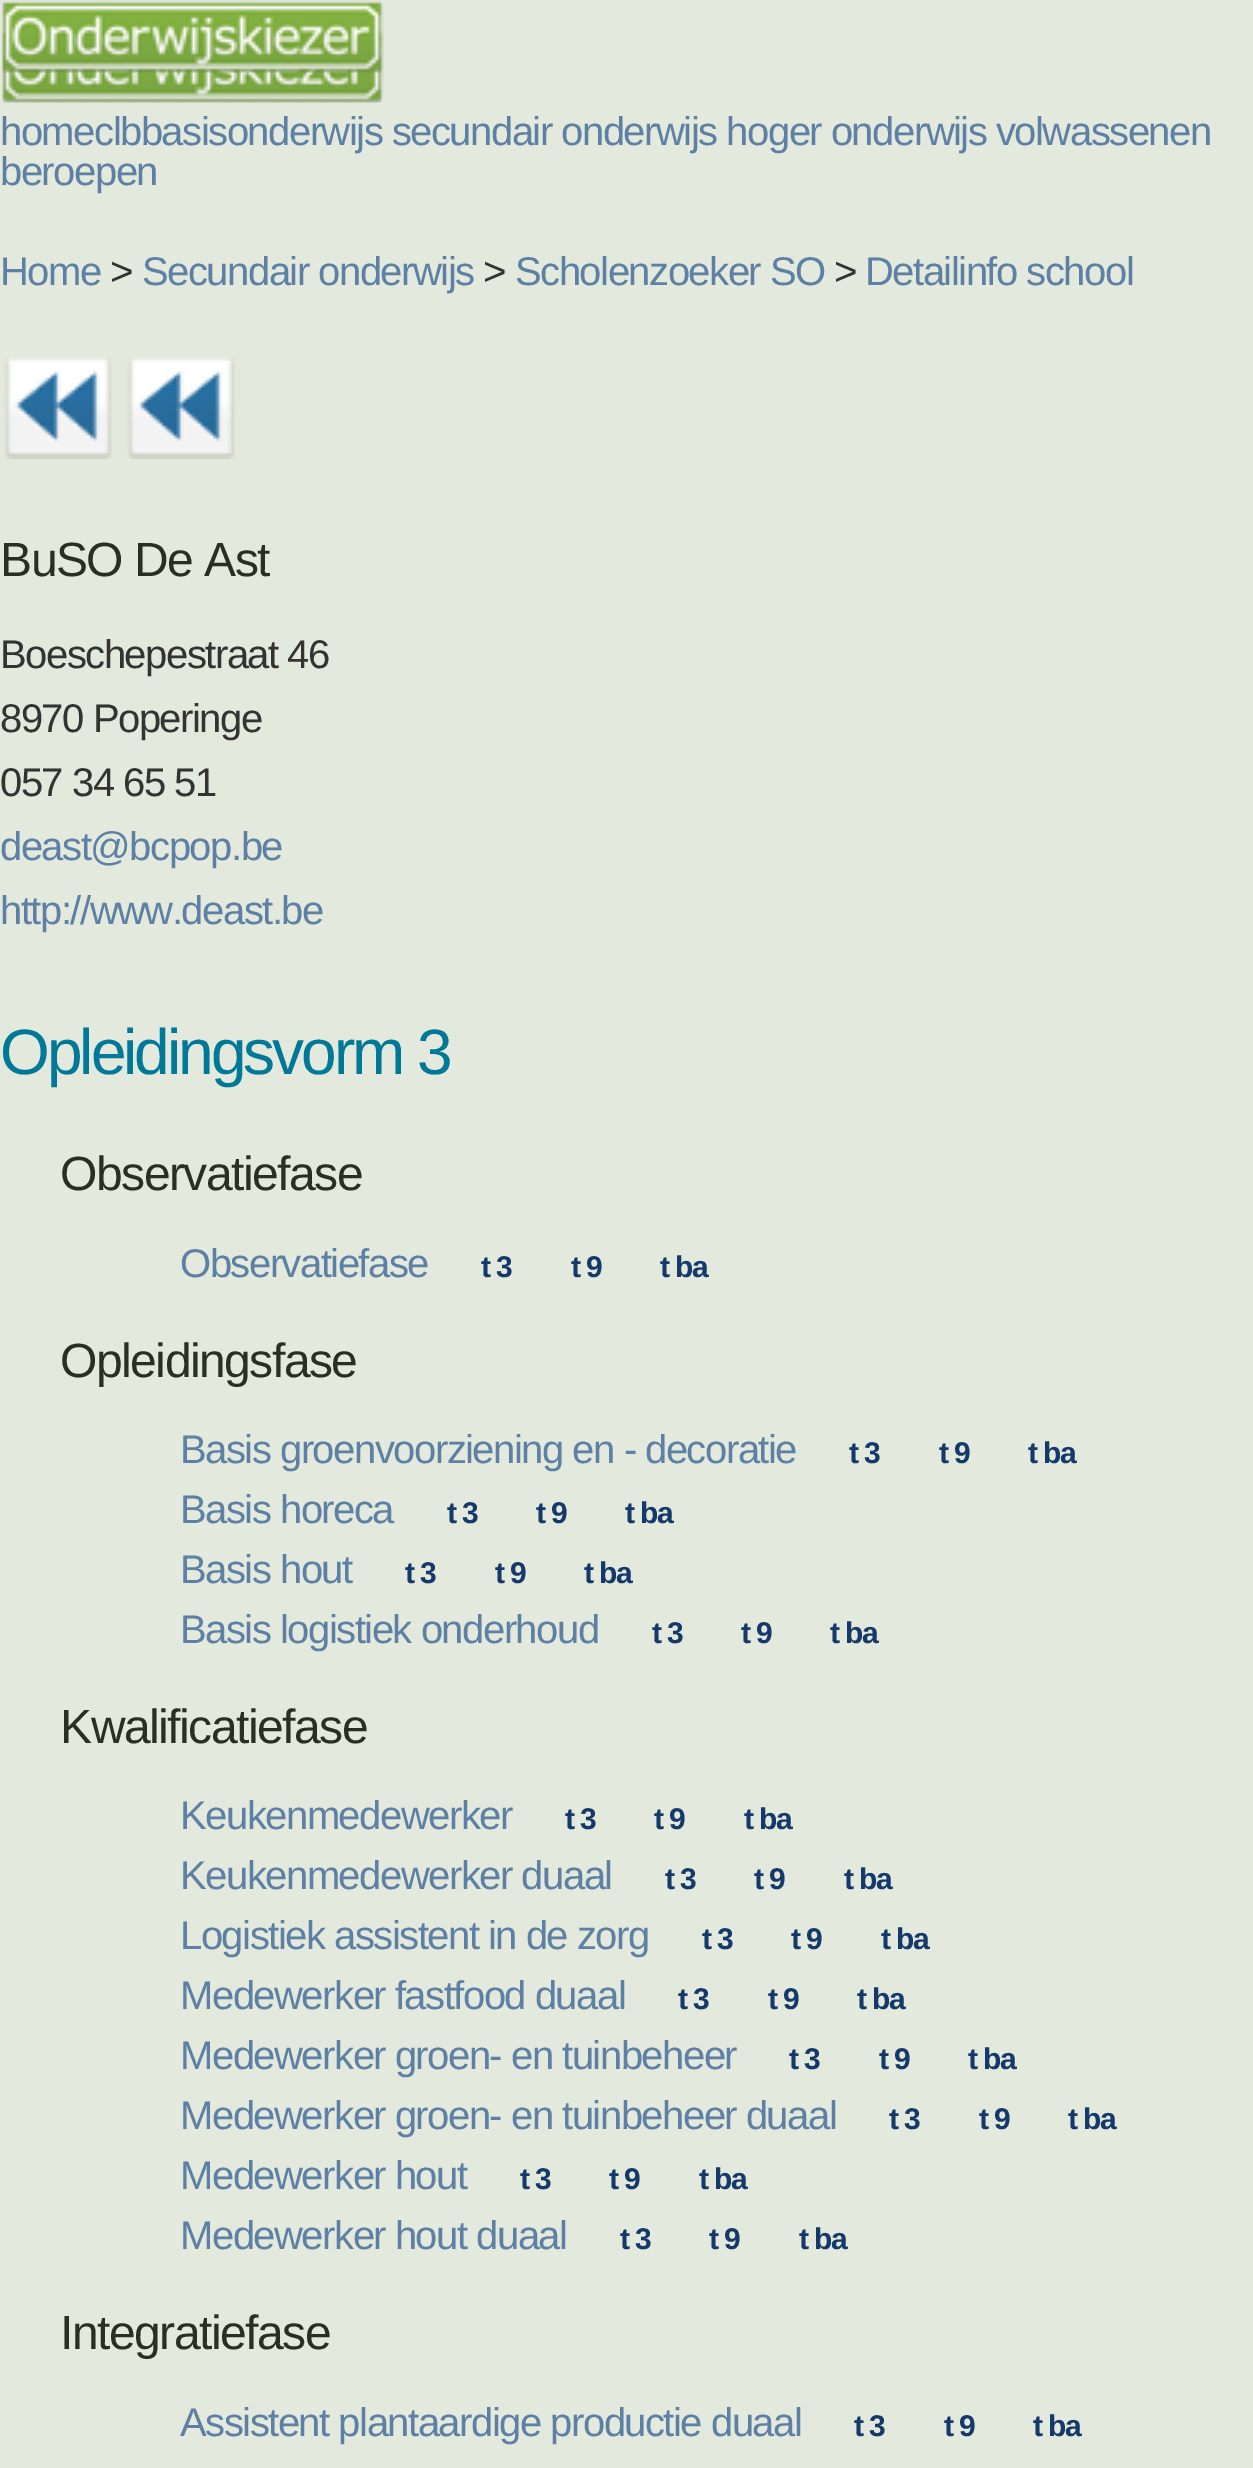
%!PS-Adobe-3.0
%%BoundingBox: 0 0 1253 2468
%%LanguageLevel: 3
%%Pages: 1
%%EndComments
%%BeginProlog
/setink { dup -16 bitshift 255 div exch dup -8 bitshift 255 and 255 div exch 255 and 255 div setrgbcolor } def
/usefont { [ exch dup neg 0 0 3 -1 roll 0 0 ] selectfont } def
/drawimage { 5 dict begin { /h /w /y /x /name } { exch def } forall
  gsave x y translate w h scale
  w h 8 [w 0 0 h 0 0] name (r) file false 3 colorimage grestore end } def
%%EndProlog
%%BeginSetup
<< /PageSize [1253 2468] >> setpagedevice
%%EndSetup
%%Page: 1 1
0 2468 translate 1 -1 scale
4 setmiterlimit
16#E3E9DC setink
0 0 1253 2468 rectfill
(img2.raw) 2 30 382 73 drawimage
(img1.raw) 2 0 382 73 drawimage
/LiberationSans-Regular 40 usefont
16#5D80A4 setink
0 145 moveto -1.5 0 (homeclbbasisonderwijs secundair onderwijs hoger onderwijs volwassenen) ashow
0 185 moveto -1.5 0 (beroepen) ashow
0 285 moveto -1.5 0 (Home) ashow
16#333333 setink
110 285 moveto -1.5 0 (>) ashow
16#5D80A4 setink
142 285 moveto -1.5 0 (Secundair onderwijs) ashow
16#333333 setink
483 285 moveto -1.5 0 (>) ashow
16#5D80A4 setink
515 285 moveto -1.5 0 (Scholenzoeker SO) ashow
16#333333 setink
834 285 moveto -1.5 0 (>) ashow
16#5D80A4 setink
865 285 moveto -1.5 0 (Detailinfo school) ashow
(img3.raw) 4 357 108 102 drawimage
(img3.raw) 127 357 108 102 drawimage
/LiberationSans-Regular 48 usefont
16#283121 setink
0 576 moveto -1.5 0 (BuSO De Ast) ashow
/LiberationSans-Regular 40 usefont
16#333333 setink
0 668 moveto -1.5 0 (Boeschepestraat 46) ashow
0 732 moveto -1.5 0 (8970 Poperinge) ashow
0 796 moveto -1.5 0 (057 34 65 51) ashow
16#5D80A4 setink
0 860 moveto -1.5 0 (deast@bcpop.be) ashow
0 924 moveto -1.5 0 (http://www.deast.be) ashow
/LiberationSans-Regular 64 usefont
16#007897 setink
0 1074 moveto -3 0 (Opleidingsvorm 3) ashow
/LiberationSans-Regular 48 usefont
16#283121 setink
60 1190 moveto -1.5 0 (Observatiefase) ashow
/LiberationSans-Regular 40 usefont
16#5D80A4 setink
180 1277 moveto -1.5 0 (Observatiefase) ashow
/LiberationSans-Bold 30 usefont
16#14396A setink
481 1277 moveto -1.5 0 (t 3) ashow
571 1277 moveto -1.5 0 (t 9) ashow
660 1277 moveto -1.5 0 (t ba) ashow
/LiberationSans-Regular 48 usefont
16#283121 setink
60 1377 moveto -1.5 0 (Opleidingsfase) ashow
/LiberationSans-Regular 40 usefont
16#5D80A4 setink
180 1463 moveto -1.5 0 (Basis groenvoorziening en - decoratie) ashow
/LiberationSans-Bold 30 usefont
16#14396A setink
849 1463 moveto -1.5 0 (t 3) ashow
939 1463 moveto -1.5 0 (t 9) ashow
1028 1463 moveto -1.5 0 (t ba) ashow
/LiberationSans-Regular 40 usefont
16#5D80A4 setink
180 1523 moveto -1.5 0 (Basis horeca) ashow
/LiberationSans-Bold 30 usefont
16#14396A setink
447 1523 moveto -1.5 0 (t 3) ashow
536 1523 moveto -1.5 0 (t 9) ashow
625 1523 moveto -1.5 0 (t ba) ashow
/LiberationSans-Regular 40 usefont
16#5D80A4 setink
180 1583 moveto -1.5 0 (Basis hout) ashow
/LiberationSans-Bold 30 usefont
16#14396A setink
405 1583 moveto -1.5 0 (t 3) ashow
495 1583 moveto -1.5 0 (t 9) ashow
584 1583 moveto -1.5 0 (t ba) ashow
/LiberationSans-Regular 40 usefont
16#5D80A4 setink
180 1643 moveto -1.5 0 (Basis logistiek onderhoud) ashow
/LiberationSans-Bold 30 usefont
16#14396A setink
652 1643 moveto -1.5 0 (t 3) ashow
741 1643 moveto -1.5 0 (t 9) ashow
830 1643 moveto -1.5 0 (t ba) ashow
/LiberationSans-Regular 48 usefont
16#283121 setink
60 1743 moveto -1.5 0 (Kwalificatiefase) ashow
/LiberationSans-Regular 40 usefont
16#5D80A4 setink
180 1829 moveto -1.5 0 (Keukenmedewerker) ashow
/LiberationSans-Bold 30 usefont
16#14396A setink
565 1829 moveto -1.5 0 (t 3) ashow
654 1829 moveto -1.5 0 (t 9) ashow
744 1829 moveto -1.5 0 (t ba) ashow
/LiberationSans-Regular 40 usefont
16#5D80A4 setink
180 1889 moveto -1.5 0 (Keukenmedewerker duaal) ashow
/LiberationSans-Bold 30 usefont
16#14396A setink
665 1889 moveto -1.5 0 (t 3) ashow
754 1889 moveto -1.5 0 (t 9) ashow
844 1889 moveto -1.5 0 (t ba) ashow
/LiberationSans-Regular 40 usefont
16#5D80A4 setink
180 1949 moveto -1.5 0 (Logistiek assistent in de zorg) ashow
/LiberationSans-Bold 30 usefont
16#14396A setink
702 1949 moveto -1.5 0 (t 3) ashow
791 1949 moveto -1.5 0 (t 9) ashow
881 1949 moveto -1.5 0 (t ba) ashow
/LiberationSans-Regular 40 usefont
16#5D80A4 setink
180 2009 moveto -1.5 0 (Medewerker fastfood duaal) ashow
/LiberationSans-Bold 30 usefont
16#14396A setink
678 2009 moveto -1.5 0 (t 3) ashow
768 2009 moveto -1.5 0 (t 9) ashow
857 2009 moveto -1.5 0 (t ba) ashow
/LiberationSans-Regular 40 usefont
16#5D80A4 setink
180 2069 moveto -1.5 0 (Medewerker groen- en tuinbeheer) ashow
/LiberationSans-Bold 30 usefont
16#14396A setink
789 2069 moveto -1.5 0 (t 3) ashow
879 2069 moveto -1.5 0 (t 9) ashow
968 2069 moveto -1.5 0 (t ba) ashow
/LiberationSans-Regular 40 usefont
16#5D80A4 setink
180 2129 moveto -1.5 0 (Medewerker groen- en tuinbeheer duaal) ashow
/LiberationSans-Bold 30 usefont
16#14396A setink
889 2129 moveto -1.5 0 (t 3) ashow
979 2129 moveto -1.5 0 (t 9) ashow
1068 2129 moveto -1.5 0 (t ba) ashow
/LiberationSans-Regular 40 usefont
16#5D80A4 setink
180 2189 moveto -1.5 0 (Medewerker hout) ashow
/LiberationSans-Bold 30 usefont
16#14396A setink
520 2189 moveto -1.5 0 (t 3) ashow
609 2189 moveto -1.5 0 (t 9) ashow
699 2189 moveto -1.5 0 (t ba) ashow
/LiberationSans-Regular 40 usefont
16#5D80A4 setink
180 2249 moveto -1.5 0 (Medewerker hout duaal) ashow
/LiberationSans-Bold 30 usefont
16#14396A setink
620 2249 moveto -1.5 0 (t 3) ashow
709 2249 moveto -1.5 0 (t 9) ashow
799 2249 moveto -1.5 0 (t ba) ashow
/LiberationSans-Regular 48 usefont
16#283121 setink
60 2349 moveto -1.5 0 (Integratiefase) ashow
/LiberationSans-Regular 40 usefont
16#5D80A4 setink
180 2436 moveto -1.5 0 (Assistent plantaardige productie duaal) ashow
/LiberationSans-Bold 30 usefont
16#14396A setink
854 2436 moveto -1.5 0 (t 3) ashow
944 2436 moveto -1.5 0 (t 9) ashow
1033 2436 moveto -1.5 0 (t ba) ashow
showpage
%%EOF
